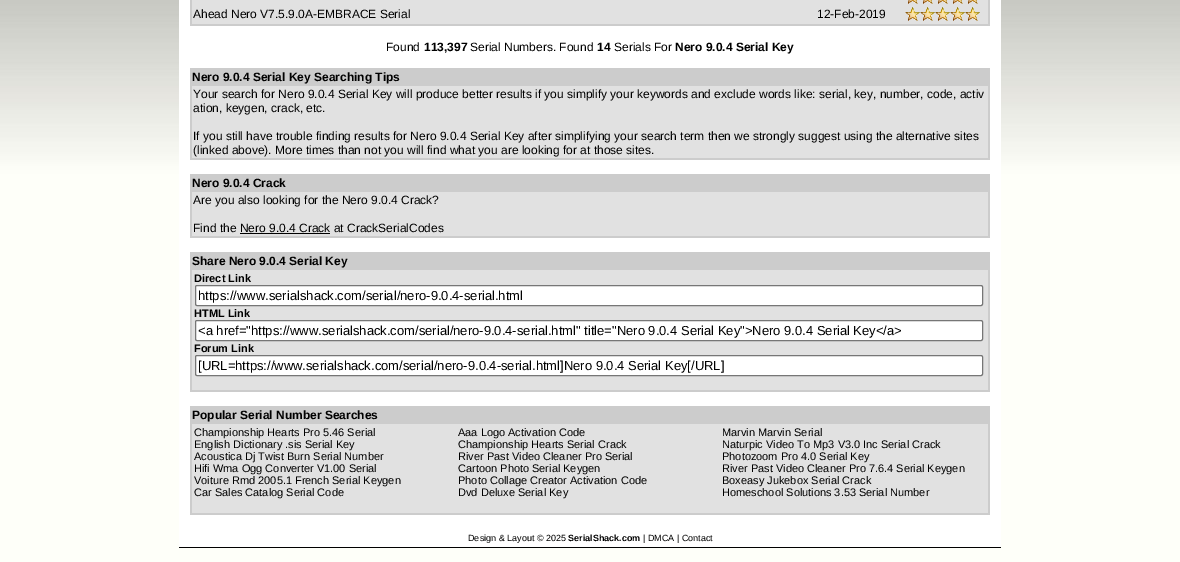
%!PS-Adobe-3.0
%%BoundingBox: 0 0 1180 562
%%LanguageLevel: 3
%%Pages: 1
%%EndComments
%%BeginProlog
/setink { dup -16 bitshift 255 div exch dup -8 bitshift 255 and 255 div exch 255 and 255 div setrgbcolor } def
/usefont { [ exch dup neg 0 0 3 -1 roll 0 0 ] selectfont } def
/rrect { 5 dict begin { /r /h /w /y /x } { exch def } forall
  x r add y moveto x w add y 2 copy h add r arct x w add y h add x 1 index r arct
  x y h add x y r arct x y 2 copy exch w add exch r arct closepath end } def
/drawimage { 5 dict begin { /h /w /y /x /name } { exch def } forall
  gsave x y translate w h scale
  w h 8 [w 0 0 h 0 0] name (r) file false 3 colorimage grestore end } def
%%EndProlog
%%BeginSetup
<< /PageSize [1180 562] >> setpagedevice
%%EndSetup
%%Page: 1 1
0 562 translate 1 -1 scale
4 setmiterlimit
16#FFFFFF setink
0 0 1180 562 rectfill
(img1.raw) 0 0 1180 562 drawimage
[
    [179 0 822 547 16#FFFFFF]
    [190 0 800 26 16#CCCCCC]
    [192 0 796 24 16#E1E1E1]
] { aload pop setink rectfill } forall
(img2.raw) 908 0 70 4 drawimage
/LiberationSans-Regular 12 usefont
16#000000 setink
193 18 moveto (Ahead Nero V7.5.9.0A-EMBRACE Serial) show
817 18 moveto (12-Feb-2019) show
(img3.raw) 905 7 75 14 drawimage
386 51 moveto (Found) show
/LiberationSans-Bold 12 usefont
424 51 moveto (113,397) show
/LiberationSans-Regular 12 usefont
470 51 moveto (Serial Numbers. Found) show
/LiberationSans-Bold 12 usefont
597 51 moveto (14) show
/LiberationSans-Regular 12 usefont
614 51 moveto (Serials For) show
/LiberationSans-Bold 12 usefont
675 51 moveto (Nero 9.0.4 Serial Key) show
16#CCCCCC setink
190 68 800 92 rectfill
16#000000 setink
192 81 moveto (Nero 9.0.4 Serial Key Searching Tips) show
16#E1E1E1 setink
192 86 796 72 rectfill
/LiberationSans-Regular 12 usefont
16#000000 setink
[
    [(Your search for Nero 9.0.4 Serial Key will produce better results if you simplify your keywords and exclude words like: serial, key, number, code, activ) 193 98]
    [(ation, keygen, crack, etc.) 193 112]
    [(If you still have trouble finding results for Nero 9.0.4 Serial Key after simplifying your search term then we strongly suggest using the alternative sites) 193 140]
    [(\(linked above\). More times than not you will find what you are looking for at those sites.) 193 154]
] { aload pop moveto show } forall
16#CCCCCC setink
190 174 800 64 rectfill
/LiberationSans-Bold 12 usefont
16#000000 setink
192 187 moveto (Nero 9.0.4 Crack) show
16#E1E1E1 setink
192 192 796 44 rectfill
/LiberationSans-Regular 12 usefont
16#000000 setink
193 204 moveto (Are you also looking for the Nero 9.0.4 Crack?) show
193 232 moveto (Find the Nero 9.0.4 Crack at CrackSerialCodes) show
240 233 90 1 rectfill
16#CCCCCC setink
190 252 800 140 rectfill
/LiberationSans-Bold 12 usefont
16#000000 setink
192 265 moveto (Share Nero 9.0.4 Serial Key) show
16#E1E1E1 setink
192 270 796 120 rectfill
/LiberationSans-Bold 11 usefont
16#000000 setink
194 282 moveto (Direct Link) show
16#FFFFFF setink
195.5 285.5 787 20 1.5 rrect gsave fill grestore
16#767676 setink
stroke
/LiberationSans-Regular 13 usefont
16#000000 setink
198 300 moveto (https://www.serialshack.com/serial/nero-9.0.4-serial.html) show
/LiberationSans-Bold 11 usefont
194 317 moveto (HTML Link) show
16#FFFFFF setink
195.5 320.5 787 20 1.5 rrect gsave fill grestore
16#767676 setink
stroke
/LiberationSans-Regular 13 usefont
16#000000 setink
198 335 moveto (<a href="https://www.serialshack.com/serial/nero-9.0.4-serial.html" title="Nero 9.0.4 Serial Key">Nero 9.0.4 Serial Key</a>) show
/LiberationSans-Bold 11 usefont
194 352 moveto (Forum Link) show
16#FFFFFF setink
195.5 355.5 787 20 1.5 rrect gsave fill grestore
16#767676 setink
stroke
/LiberationSans-Regular 13 usefont
16#000000 setink
198 370 moveto ([URL=https://www.serialshack.com/serial/nero-9.0.4-serial.html]Nero 9.0.4 Serial Key[/URL]) show
16#CCCCCC setink
190 406 800 109 rectfill
/LiberationSans-Bold 12 usefont
16#000000 setink
192 419 moveto (Popular Serial Number Searches) show
16#E1E1E1 setink
192 424 796 89 rectfill
/LiberationSans-Regular 11 usefont
16#000000 setink
[
    [(Championship Hearts Pro 5.46 Serial) 194 436]
    [(Aaa Logo Activation Code) 458 436]
    [(Marvin Marvin Serial) 722 436]
    [(English Dictionary .sis Serial Key) 194 448]
    [(Championship Hearts Serial Crack) 458 448]
    [(Naturpic Video To Mp3 V3.0 Inc Serial Crack) 722 448]
    [(Acoustica Dj Twist Burn Serial Number) 194 460]
    [(River Past Video Cleaner Pro Serial) 458 460]
    [(Photozoom Pro 4.0 Serial Key) 722 460]
    [(Hifi Wma Ogg Converter V1.00 Serial) 194 472]
    [(Cartoon Photo Serial Keygen) 458 472]
    [(River Past Video Cleaner Pro 7.6.4 Serial Keygen) 722 472]
    [(Voiture Rmd 2005.1 French Serial Keygen) 194 484]
    [(Photo Collage Creator Activation Code) 458 484]
    [(Boxeasy Jukebox Serial Crack) 722 484]
    [(Car Sales Catalog Serial Code) 194 496]
    [(Dvd Deluxe Serial Key) 458 496]
    [(Homeschool Solutions 3.53 Serial Number) 722 496]
] { aload pop moveto show } forall
/LiberationSans-Regular 9 usefont
468 541 moveto (Design & Layout © 2025) show
/LiberationSans-Bold 9 usefont
568 541 moveto (SerialShack.com) show
/LiberationSans-Regular 9 usefont
643 541 moveto (| DMCA | Contact) show
179 547 822 1 rectfill
showpage
%%EOF
